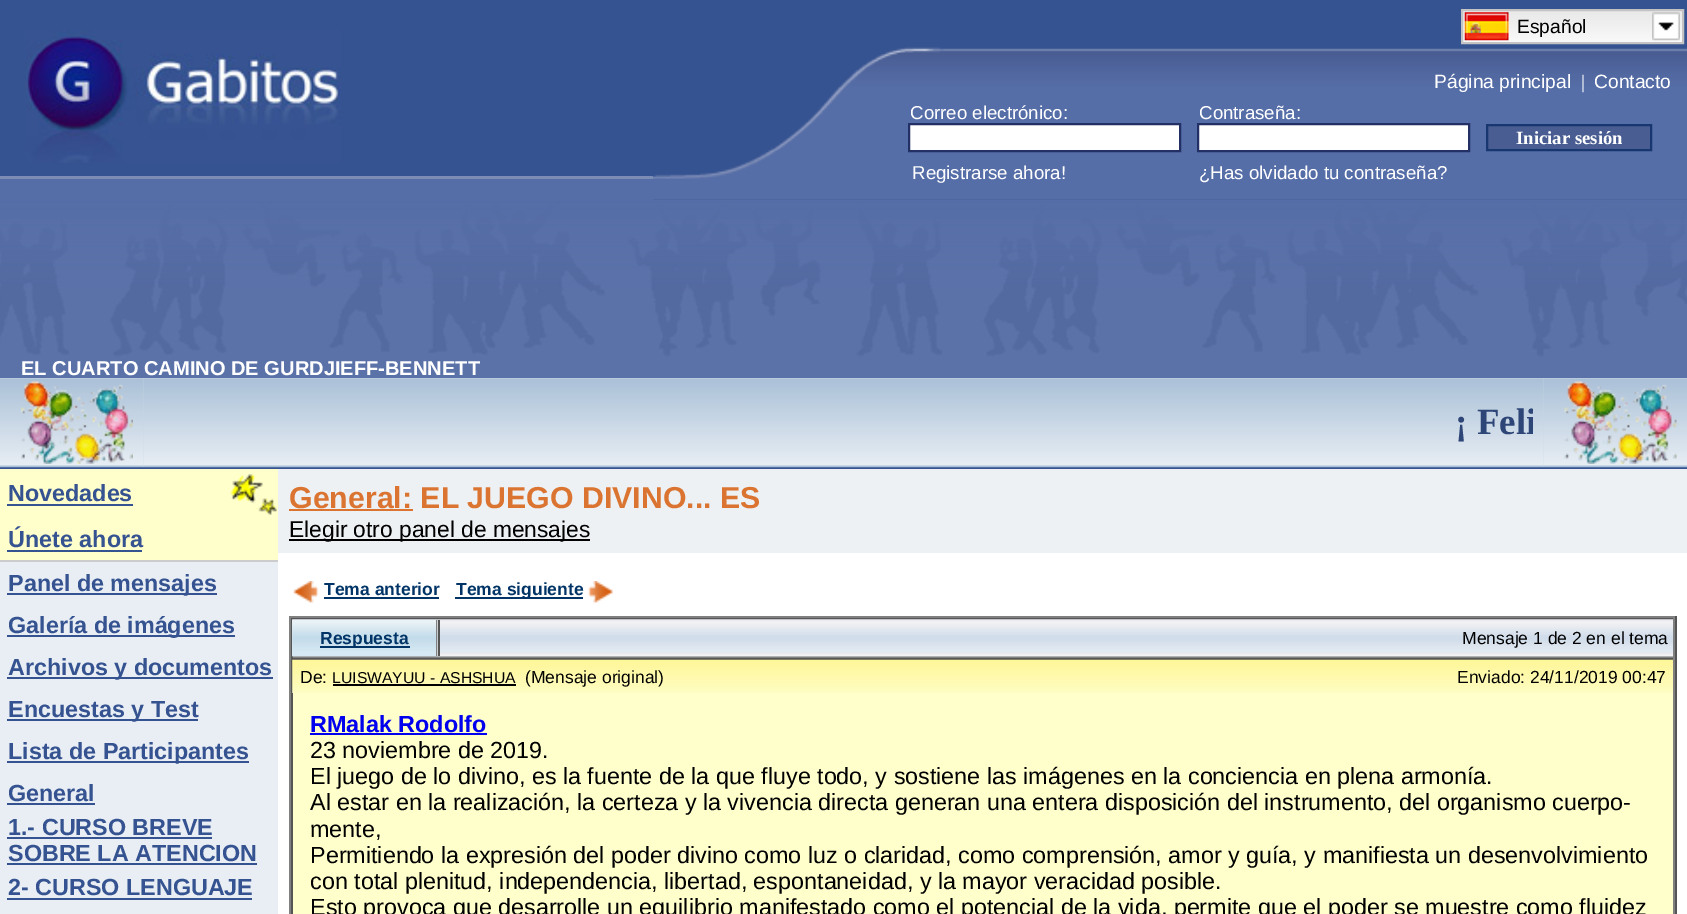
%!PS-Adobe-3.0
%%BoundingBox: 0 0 1687 914
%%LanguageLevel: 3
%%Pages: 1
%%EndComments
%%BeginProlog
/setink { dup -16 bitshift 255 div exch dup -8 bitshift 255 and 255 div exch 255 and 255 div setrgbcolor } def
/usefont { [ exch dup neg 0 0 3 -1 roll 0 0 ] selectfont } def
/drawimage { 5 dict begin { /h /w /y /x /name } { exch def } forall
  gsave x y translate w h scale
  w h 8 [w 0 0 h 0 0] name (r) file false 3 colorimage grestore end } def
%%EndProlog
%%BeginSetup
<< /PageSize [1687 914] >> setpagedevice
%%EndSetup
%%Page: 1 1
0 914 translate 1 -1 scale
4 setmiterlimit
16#365391 setink
0 0 1687 914 rectfill
(img1.raw) 25 30 316 133 drawimage
(img2.raw) 652 47 1035 153 drawimage
(img3.raw) 1463 11 219 31 drawimage
16#C3C3C3 setink
2 setlinewidth
1462 10 221 33 rectstroke
(img4.raw) 1464 12 45 29 drawimage
/LiberationSans-Regular 19.25 usefont
16#000000 setink
1517 33 moveto (Español) show
(img5.raw) 1652 12 28 29 drawimage
16#FFFFFF setink
1434 88 moveto (Página principal) show
/LiberationSerif-Regular 19.25 usefont
1581 88 moveto (|) show
/LiberationSans-Regular 19.25 usefont
1594 88 moveto (Contacto) show
/LiberationSans-Regular 18.7 usefont
910 119 moveto (Correo electrónico:) show
1199 119 moveto (Contraseña:) show
909 124 moveto 1180 124 lineto 1180 151 lineto 909 151 lineto closepath gsave fill grestore
16#233065 setink
stroke
16#FFFFFF setink
1198 124 moveto 1469 124 lineto 1469 151 lineto 1198 151 lineto closepath gsave fill grestore
16#233065 setink
stroke
16#495D93 setink
1487 125 moveto 1651 125 lineto 1651 150 lineto 1487 150 lineto closepath gsave fill grestore
16#183770 setink
stroke
/LiberationSerif-Bold 18.7 usefont
16#FFFFFF setink
1516 144 moveto (Iniciar sesión) show
/LiberationSans-Regular 18.7 usefont
912 179 moveto (Registrarse ahora!) show
1199 179 moveto (¿Has olvidado tu contraseña?) show
16#566EA7 setink
0 179 653 21 rectfill
16#7C8CB4 setink
0 176 653 3 rectfill
(img6.raw) 0 199 1687 158 drawimage
16#5B72A9 setink
0 357 1687 21 rectfill
/LiberationSans-Bold 20.1 usefont
16#FFFFFF setink
21 375 moveto (EL CUARTO CAMINO DE GURDJIEFF-BENNETT) show
(img7.raw) 0 378 144 90 drawimage
(img8.raw) 21 381 112 83 drawimage
(img9.raw) 143 378 1401 90 drawimage
gsave
165 401 1368 44 rectclip
/LiberationSerif-Bold 37 usefont
16#2D4577 setink
1455 434 moveto (¡ Feli) show
grestore
(img10.raw) 1543 378 144 90 drawimage
(img11.raw) 1564 381 113 83 drawimage
[
    [278 553 1409 361 16#FFFFFF]
    [0 562 278 352 16#E8EEF4]
    [0 469 278 91 16#FFFFCC]
] { aload pop setink rectfill } forall
/LiberationSans-Bold 23.33 usefont
16#365391 setink
8 501 moveto (Novedades) show
7 504 126 2 rectfill
(img12.raw) 230 474 47 41 drawimage
8 547 moveto (Únete ahora) show
[
    [7 550 135 2 16#365391]
    [0 560 278 2 16#CCCCCC]
    [7 593 210 2 16#365391]
] { aload pop setink rectfill } forall
8 591 moveto (Panel de mensajes) show
7 635 228 2 rectfill
8 633 moveto (Galería de imágenes) show
7 677 266 2 rectfill
8 675 moveto (Archivos y documentos) show
7 719 191 2 rectfill
8 717 moveto (Encuestas y Test) show
7 761 242 2 rectfill
8 759 moveto (Lista de Participantes) show
8 801 moveto (General) show
7 803 88 2 rectfill
8 835 moveto (1.- CURSO BREVE) show
7 837 205 2 rectfill
8 861 moveto (SOBRE LA ATENCION) show
7 863 250 2 rectfill
8 895 moveto (2- CURSO LENGUAJE) show
7 898 245 2 rectfill
16#EEF1F4 setink
278 469 1409 84 rectfill
/LiberationSans-Bold 30.3 usefont
16#DA7430 setink
289 508 moveto (General: EL JUEGO DIVINO... ES) show
289 509 124 2 rectfill
16#000000 setink
289 539 301 2 rectfill
/LiberationSans-Regular 22.75 usefont
289 537 moveto (Elegir otro panel de mensajes) show
(img13.raw) 293 581 26 23 drawimage
/LiberationSans-Bold 17.5 usefont
16#003366 setink
324 595 moveto (Tema anterior) show
324 597 115 2 rectfill
455 597 128 2 rectfill
456 595 moveto (Tema siguiente) show
(img14.raw) 587 581 26 23 drawimage
[
    [289 616 1388 2 16#808080]
    [1675 616 2 298 16#555555]
    [289 616 2 298 16#808080]
    [291 618 1384 2 16#555555]
    [1673 618 2 40 16#808080]
    [291 656 1384 2 16#808080]
    [291 618 2 40 16#555555]
] { aload pop setink rectfill } forall
(img15.raw) 292 619 146 38 drawimage
16#808080 setink
436 620 2 36 rectfill
16#003366 setink
320 646 90 2 rectfill
320 644 moveto (Respuesta) show
(img16.raw) 437 619 1236 38 drawimage
16#555555 setink
438 620 2 36 rectfill
/LiberationSans-Regular 17.5 usefont
16#000000 setink
1462 644 moveto (Mensaje 1 de 2 en el tema) show
[
    [293 693 1380 221 16#FFFFCC]
    [291 658 1384 2 16#555555]
    [1673 658 2 256 16#808080]
    [291 658 2 256 16#555555]
] { aload pop setink rectfill } forall
(img17.raw) 292 659 1157 34 drawimage
16#000000 setink
300 683 moveto (De:) show
/LiberationSans-Regular 15.75 usefont
332 683 moveto (LUISWAYUU - ASHSHUA) show
333 684 183 2 rectfill
/LiberationSans-Regular 17.5 usefont
525 683 moveto (\(Mensaje original\)) show
(img18.raw) 1449 659 224 34 drawimage
1457 683 moveto (Enviado: 24/11/2019 00:47) show
/LiberationSans-Bold 23.33 usefont
16#0000EE setink
310 732 moveto (RMalak Rodolfo) show
310 733 177 2 rectfill
/LiberationSans-Regular 23.33 usefont
16#000000 setink
[
    [(23 noviembre de 2019.) 310 758]
    [(El juego de lo divino, es la fuente de la que fluye todo, y sostiene las imágenes en la conciencia en plena armonía.) 310 784]
    [(Al estar en la realización, la certeza y la vivencia directa generan una entera disposición del instrumento, del organismo cuerpo-) 310 810]
    [(mente,) 310 837]
    [(Permitiendo la expresión del poder divino como luz o claridad, como comprensión, amor y guía, y manifiesta un desenvolvimiento) 310 863]
    [(con total plenitud, independencia, libertad, espontaneidad, y la mayor veracidad posible.) 310 889]
    [(Esto provoca que desarrolle un equilibrio manifestado como el potencial de la vida, permite que el poder se muestre como fluidez) 310 915]
] { aload pop moveto show } forall
showpage
%%EOF
